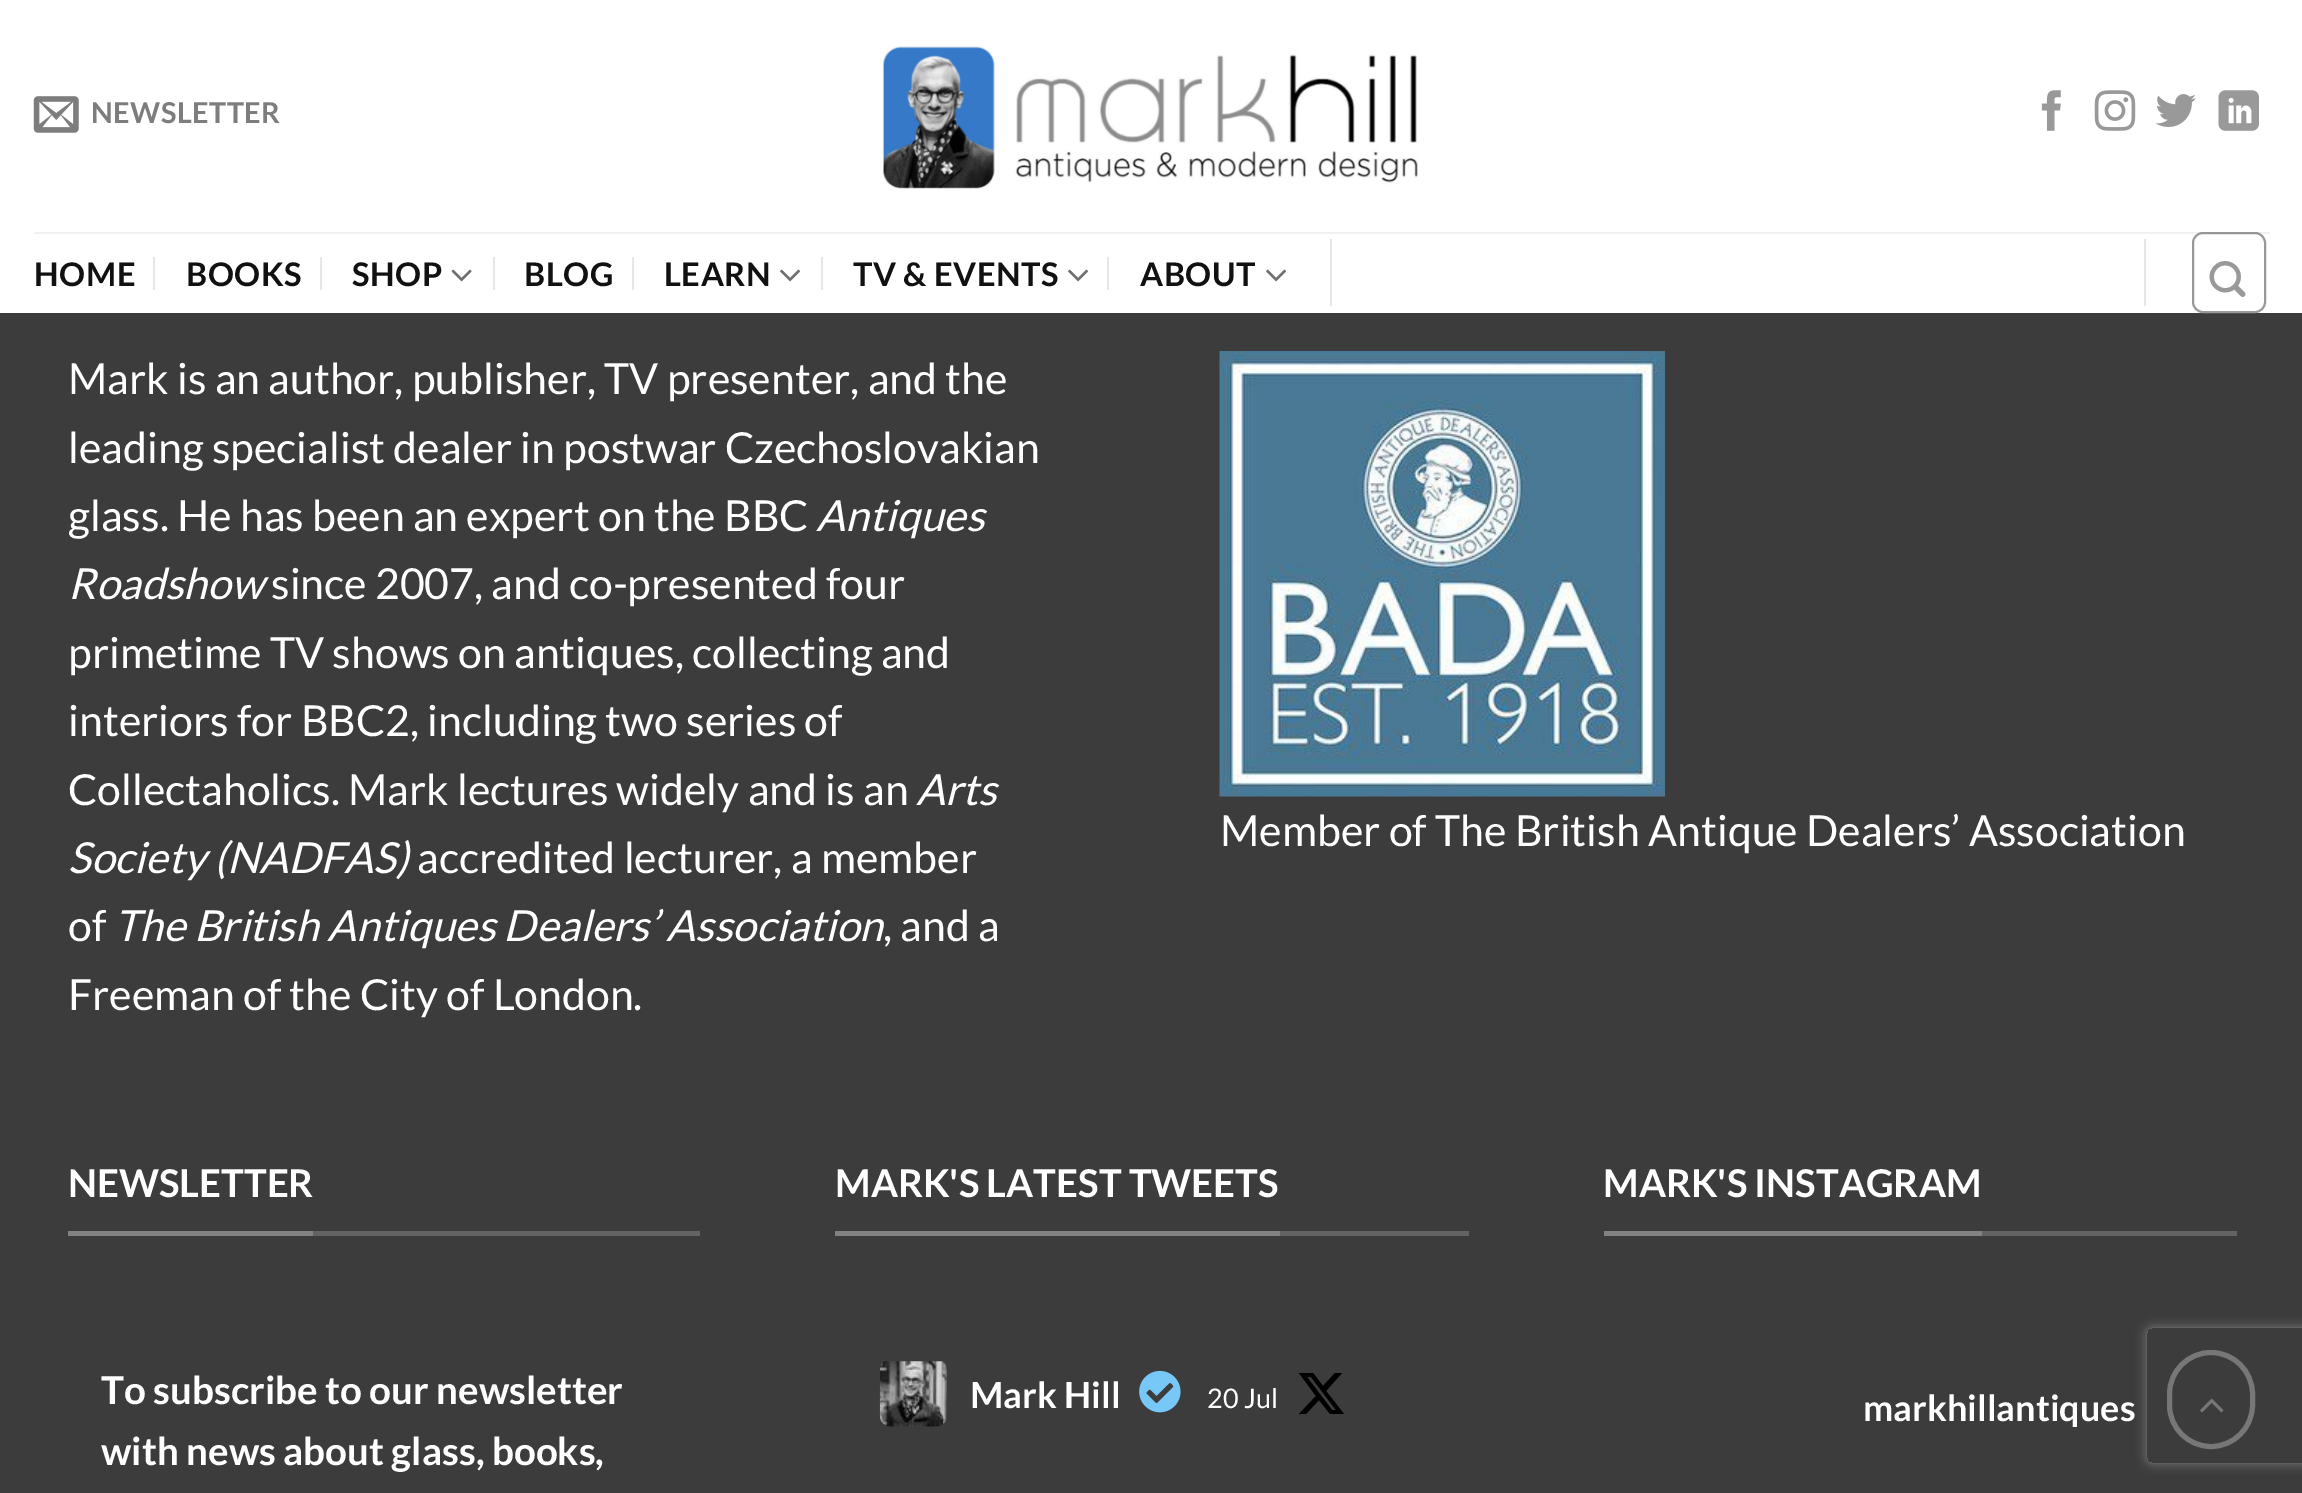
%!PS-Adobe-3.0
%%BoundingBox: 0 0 2302 1493
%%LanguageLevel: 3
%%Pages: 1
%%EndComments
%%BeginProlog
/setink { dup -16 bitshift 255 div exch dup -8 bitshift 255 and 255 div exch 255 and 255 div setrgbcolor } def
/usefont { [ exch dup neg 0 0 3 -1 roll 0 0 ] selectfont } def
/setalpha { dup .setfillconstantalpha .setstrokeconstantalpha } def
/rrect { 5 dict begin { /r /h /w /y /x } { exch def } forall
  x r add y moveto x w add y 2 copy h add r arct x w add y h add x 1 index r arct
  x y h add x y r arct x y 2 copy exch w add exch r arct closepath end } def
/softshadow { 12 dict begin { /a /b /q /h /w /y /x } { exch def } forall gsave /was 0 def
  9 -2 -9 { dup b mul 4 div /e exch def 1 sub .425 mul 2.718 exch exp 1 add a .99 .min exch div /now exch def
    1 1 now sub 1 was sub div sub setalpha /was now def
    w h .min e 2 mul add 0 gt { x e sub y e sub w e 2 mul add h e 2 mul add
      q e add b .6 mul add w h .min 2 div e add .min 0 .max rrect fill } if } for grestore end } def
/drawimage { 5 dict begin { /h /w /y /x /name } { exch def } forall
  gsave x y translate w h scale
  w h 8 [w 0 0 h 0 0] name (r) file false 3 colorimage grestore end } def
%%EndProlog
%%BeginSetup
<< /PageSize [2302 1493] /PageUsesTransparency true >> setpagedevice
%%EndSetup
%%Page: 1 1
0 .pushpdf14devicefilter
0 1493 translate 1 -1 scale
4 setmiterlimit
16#3C3C3C setink
0 0 2302 1493 rectfill
16#FFFFFF setink
0 0 2302 313 rectfill
(img1.raw) 33 96 46 37 drawimage
/Lato-Bold 28.75 usefont
16#7D7D7D setink
91 123 moveto 0.5 0 (NEWSLETTER) ashow
(img2.raw) 880 45 538 144 drawimage
(img3.raw) 2041 90 20 41 drawimage
(img4.raw) 2094 90 42 41 drawimage
(img5.raw) 2155 94 41 33 drawimage
(img6.raw) 2218 90 41 41 drawimage
16#999999 setink
2 setlinewidth
2193 233 72 79 10 rrect stroke
0.1 setalpha
16#777777 setink
34 232 2236 2 rectfill
/Lato-Bold 32.5 usefont
1 setalpha
16#111111 setink
34 286 moveto 0.6 0 (HOME) ashow
16#E6E6E6 setink
153 257 2 33 rectfill
16#111111 setink
186 286 moveto 0.6 0 (BOOKS) ashow
16#E6E6E6 setink
320 257 2 33 rectfill
16#111111 setink
352 286 moveto 0.6 0 (SHOP) ashow
(img7.raw) 451 269 21 13 drawimage
16#E6E6E6 setink
493 257 2 33 rectfill
16#111111 setink
524 286 moveto 0.6 0 (BLOG) ashow
16#E6E6E6 setink
632 257 2 33 rectfill
16#111111 setink
664 286 moveto 0.6 0 (LEARN) ashow
(img8.raw) 780 269 20 13 drawimage
16#E6E6E6 setink
821 257 2 33 rectfill
16#111111 setink
853 286 moveto 0.6 0 (TV & EVENTS) ashow
(img8.raw) 1068 269 20 13 drawimage
16#E6E6E6 setink
1107 257 2 33 rectfill
16#111111 setink
1140 286 moveto 0.6 0 (ABOUT) ashow
(img8.raw) 1266 269 20 13 drawimage
16#E6E6E6 setink
1330 239 2 67 rectfill
2144 239 2 67 rectfill
(img9.raw) 2209 261 37 36 drawimage
/Lato-Regular 42.75 usefont
16#FFFFFF setink
[
    [(Mark is an author, publisher, TV presenter, and the) 68 394]
    [(leading specialist dealer in postwar Czechoslovakian) 68 463]
    [(glass. He has been an expert on the BBC) 68 531]
] { aload pop moveto show } forall
/Lato-Italic 42.75 usefont
816 531 moveto (Antiques) show
68 599 moveto (Roadshow) show
/Lato-Regular 42.75 usefont
[
    [(since 2007, and co-presented four) 271 599]
    [(primetime TV shows on antiques, collecting and) 68 668]
    [(interiors for BBC2, including two series of) 68 736]
    [(Collectaholics. Mark lectures widely and is an) 68 805]
] { aload pop moveto show } forall
/Lato-Italic 42.75 usefont
916 805 moveto (Arts) show
68 873 moveto (Society \(NADFAS\)) show
/Lato-Regular 42.75 usefont
417 873 moveto (accredited lecturer, a member) show
68 941 moveto (of) show
/Lato-Italic 42.75 usefont
114 941 moveto (The British Antiques Dealers’ Association) show
/Lato-Regular 42.75 usefont
883 941 moveto (, and a) show
68 1010 moveto (Freeman of the City of London.) show
(img10.raw) 1219 351 446 446 drawimage
1220 846 moveto (Member of The British Antique Dealers’ Association) show
16#636363 setink
313 1231 387 5 rectfill
16#828282 setink
68 1231 245 5 rectfill
/Lato-Bold 38.25 usefont
16#FFFFFF setink
68 1197 moveto (NEWSLETTER) show
/Lato-Bold 38.5 usefont
101 1404 moveto (To subscribe to our newsletter) show
101 1465 moveto (with news about glass, books,) show
16#636363 setink
1280 1231 189 5 rectfill
16#828282 setink
835 1231 445 5 rectfill
/Lato-Bold 38.25 usefont
16#FFFFFF setink
835 1197 moveto (MARK'S LATEST TWEETS) show
(img11.raw) 879 1361 68 66 drawimage
/Lato-Bold 36 usefont
970 1408 moveto (Mark Hill) show
(img12.raw) 1139 1370 42 43 drawimage
/Lato-Regular 27 usefont
1207 1408 moveto (20 Jul) show
16#000000 setink
1335 1373 moveto 1342 1373 lineto 1326 1391 lineto 1344 1414 lineto 1330 1414 lineto 1319 1400 lineto 1306 1414 lineto 1299 1414 lineto 1316 1396 lineto 1299 1373 lineto 1313 1373 lineto 1323 1386 lineto closepath 1332 1410 moveto 1336 1410 lineto 1311 1377 lineto 1307 1377 lineto closepath fill
16#636363 setink
1982 1231 255 5 rectfill
16#828282 setink
1604 1231 378 5 rectfill
/Lato-Bold 38.25 usefont
16#FFFFFF setink
1603 1197 moveto (MARK'S INSTAGRAM) show
gsave
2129 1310 moveto 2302 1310 lineto 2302 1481 lineto 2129 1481 lineto closepath 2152 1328 moveto 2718 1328 lineto 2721 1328 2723 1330 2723 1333 curveto 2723 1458 lineto 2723 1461 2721 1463 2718 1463 curveto 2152 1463 lineto 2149 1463 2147 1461 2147 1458 curveto 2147 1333 lineto 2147 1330 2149 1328 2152 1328 curveto closepath eoclip newpath
16#808080 setink
2147 1328 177 135 5 5.5 1 softshadow
grestore
/Lato-Bold 36 usefont
1863 1421 moveto (markhillantiques) show
16#777777 setink
5 setlinewidth
2169.5 1352.5 83 94 41.5 rrect stroke
(img13.raw) 2200 1398 24 15 drawimage
.poppdf14devicefilter showpage
%%EOF
